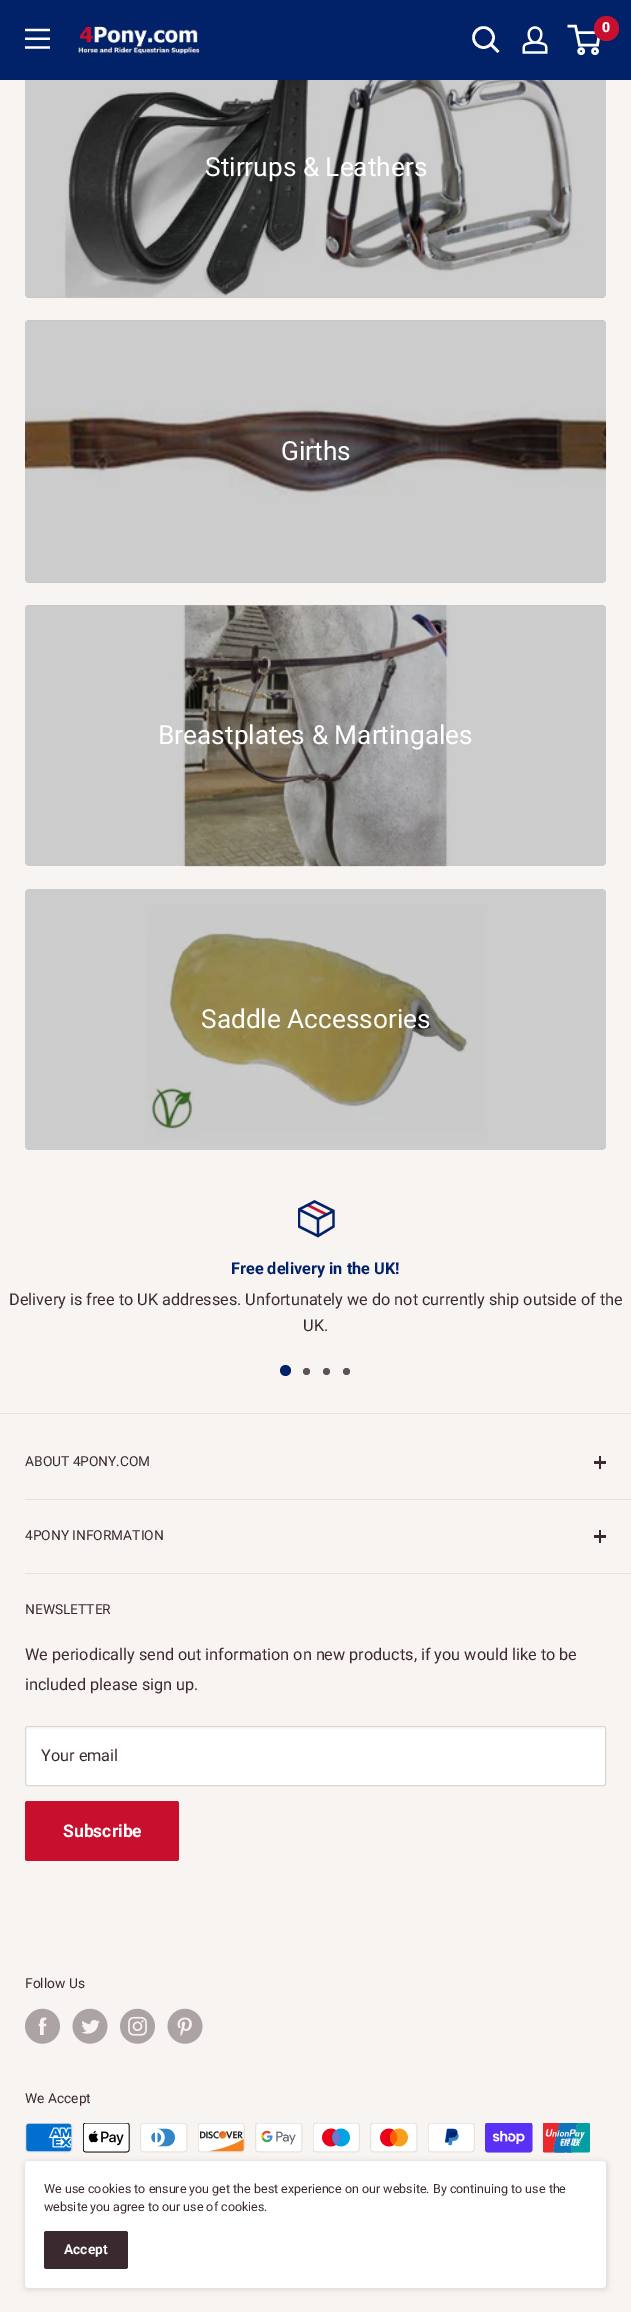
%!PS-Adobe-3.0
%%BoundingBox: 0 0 631 2312
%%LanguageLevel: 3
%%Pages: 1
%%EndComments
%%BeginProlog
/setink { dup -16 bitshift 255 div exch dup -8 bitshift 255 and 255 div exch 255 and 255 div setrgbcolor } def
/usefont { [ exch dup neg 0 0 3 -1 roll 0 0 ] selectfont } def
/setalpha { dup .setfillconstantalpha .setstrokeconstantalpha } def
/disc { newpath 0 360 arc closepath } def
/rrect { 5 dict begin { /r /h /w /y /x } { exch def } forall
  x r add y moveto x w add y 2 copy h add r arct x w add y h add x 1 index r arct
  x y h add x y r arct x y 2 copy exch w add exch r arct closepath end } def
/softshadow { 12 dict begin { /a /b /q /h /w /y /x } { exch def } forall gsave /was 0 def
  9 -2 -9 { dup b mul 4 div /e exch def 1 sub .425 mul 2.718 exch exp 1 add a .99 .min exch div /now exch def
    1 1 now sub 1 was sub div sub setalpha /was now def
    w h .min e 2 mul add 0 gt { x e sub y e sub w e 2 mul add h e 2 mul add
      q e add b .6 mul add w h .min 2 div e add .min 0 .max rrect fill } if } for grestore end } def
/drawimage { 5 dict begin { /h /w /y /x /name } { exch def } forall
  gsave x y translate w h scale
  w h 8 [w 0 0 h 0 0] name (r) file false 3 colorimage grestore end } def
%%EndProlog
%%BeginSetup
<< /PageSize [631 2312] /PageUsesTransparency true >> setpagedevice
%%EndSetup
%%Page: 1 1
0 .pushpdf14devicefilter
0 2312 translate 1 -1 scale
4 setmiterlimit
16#F7F4F2 setink
0 0 631 2312 rectfill
(img4.raw) 25 80 581 218 drawimage
0.2 setalpha
16#000000 setink
25 36 581 262 4 rrect fill
1 setalpha
16#012169 setink
0 0 631 80 rectfill
(img1.raw) 25 28 25 21 drawimage
(img2.raw) 78 26 122 28 drawimage
16#FFFFFF setink
2.6 setlinewidth
2 setlinecap
497.5 51 moveto 491 44.5 lineto stroke
0 setlinecap
483.5 37.5 10 disc stroke
(img3.raw) 522 26 26 28 drawimage
2.5 setlinewidth
581.2 51.2 2.5 disc stroke
595 51.2 2.5 disc stroke
576.5 32.5 moveto 599.5 32.5 lineto 597.5 45 lineto 579.5 45 lineto 575.5 26 lineto 567.5 26 lineto stroke
16#C8102E setink
606.5 28.5 12.5 disc fill
/Roboto-Black 14 usefont
16#FFFFFF setink
602 32 moveto (0) show
/Roboto-Regular 26.25 usefont
205 176 moveto (Stirrups & Leathers) show
(img5.raw) 25 320 582 263 drawimage
0.2 setalpha
16#000000 setink
25 320 581 263 4 rrect fill
1 setalpha
16#FFFFFF setink
281 460 moveto (Girths) show
(img6.raw) 25 605 581 262 drawimage
0.2 setalpha
16#000000 setink
25 605 581 261 4 rrect fill
1 setalpha
16#FFFFFF setink
158 744 moveto (Breastplates & Martingales) show
(img7.raw) 25 889 581 261 drawimage
0.2 setalpha
16#000000 setink
25 889 581 261 4 rrect fill
1 setalpha
16#FFFFFF setink
201 1028 moveto (Saddle Accessories) show
16#C8102E setink
2.3 setlinewidth
307.5 1205 moveto 326.5 1214.5 lineto stroke
16#012169 setink
333.5 1211 moveto 318 1219 lineto 299 1209.5 lineto 318 1219 moveto 318 1236 lineto stroke
gsave
298 1200 37 38 rectclip
2 setlinecap
333.5 1211 moveto 333.5 1226.5 lineto 318 1236 lineto 299 1226.5 lineto 299 1209.5 lineto 314.5 1201.5 lineto closepath stroke
grestore
/Roboto-Bold 16.25 usefont
231 1274 moveto (Free delivery in the UK!) show
/Roboto-Regular 16.25 usefont
16#3A2A2F setink
9 1305 moveto (Delivery is free to UK addresses. Unfortunately we do not currently ship outside of the) show
303 1331 moveto (UK.) show
16#012169 setink
285.5 1370.5 5.5 disc fill
16#605256 setink
306.5 1371.5 3.5 disc fill
326.5 1371.5 3.5 disc fill
346.5 1371.5 3.5 disc fill
16#E7E2DE setink
0 1413 631 1 rectfill
25 1499 606 1 rectfill
/Roboto-Regular 13.75 usefont
16#3A2A2F setink
25 1466 moveto (ABOUT 4PONY.COM) show
[
    [599 1456 2 13 16#3A2A2F]
    [594 1461 12 3 16#3A2A2F]
    [25 1573 606 1 16#E7E2DE]
] { aload pop setink rectfill } forall
16#3A2A2F setink
25 1540 moveto (4PONY INFORMATION) show
599 1530 2 13 rectfill
594 1535 12 3 rectfill
25 1614 moveto (NEWSLETTER) show
/Roboto-Regular 16.25 usefont
25 1660 moveto (We periodically send out information on new products, if you would like to be) show
25 1690 moveto (included please sign up.) show
16#FFFFFF setink
25 1726 581 60 2.5 rrect fill
16#F9F8F7 setink
28 1729 moveto 604 1729 lineto 605 1730 lineto 605 1729 605 1728 604 1728 curveto 26 1728 lineto 26 1730 lineto 26 1729 27 1729 28 1729 curveto closepath fill
16#DCD5CF setink
1 setlinewidth
25.5 1726.5 580 59 2 rrect stroke
16#3A2A2F setink
41 1761 moveto (Your email) show
16#C8102E setink
25 1801 154 60 2.5 rrect fill
/Roboto-Bold 17.5 usefont
16#FFFFFF setink
63 1837 moveto (Subscribe) show
/Roboto-Regular 13.75 usefont
16#3A2A2F setink
25 1988 moveto (Follow Us) show
(img8.raw) 25 2008 35 36 drawimage
(img9.raw) 72 2008 36 36 drawimage
(img10.raw) 120 2008 35 36 drawimage
(img11.raw) 167 2008 36 36 drawimage
25 2103 moveto (We Accept) show
(img12.raw) 25 2123 48 30 drawimage
(img13.raw) 83 2123 47 30 drawimage
(img14.raw) 140 2123 48 30 drawimage
(img15.raw) 198 2123 47 30 drawimage
(img16.raw) 255 2123 48 30 drawimage
(img17.raw) 313 2123 47 30 drawimage
(img18.raw) 370 2123 48 30 drawimage
(img19.raw) 428 2123 47 30 drawimage
(img20.raw) 485 2123 48 30 drawimage
(img21.raw) 543 2123 47 30 drawimage
(img22.raw) 25 2164 1 1 drawimage
16#000000 setink
24 2161 584 129 5 2.5 0.1 softshadow
16#FFFFFF setink
25 2161 581 127 4 rrect fill
/Roboto-Regular 12.5 usefont
16#3A2A2F setink
44 2193 moveto (We use cookies to ensure you get the best experience on our website. By continuing to use the) show
44 2211 moveto (website you agree to our use of cookies.) show
44 2231 84 38 2.5 rrect fill
/Roboto-Bold 13.75 usefont
16#FFFFFF setink
64 2254 moveto (Accept) show
.poppdf14devicefilter showpage
%%EOF
